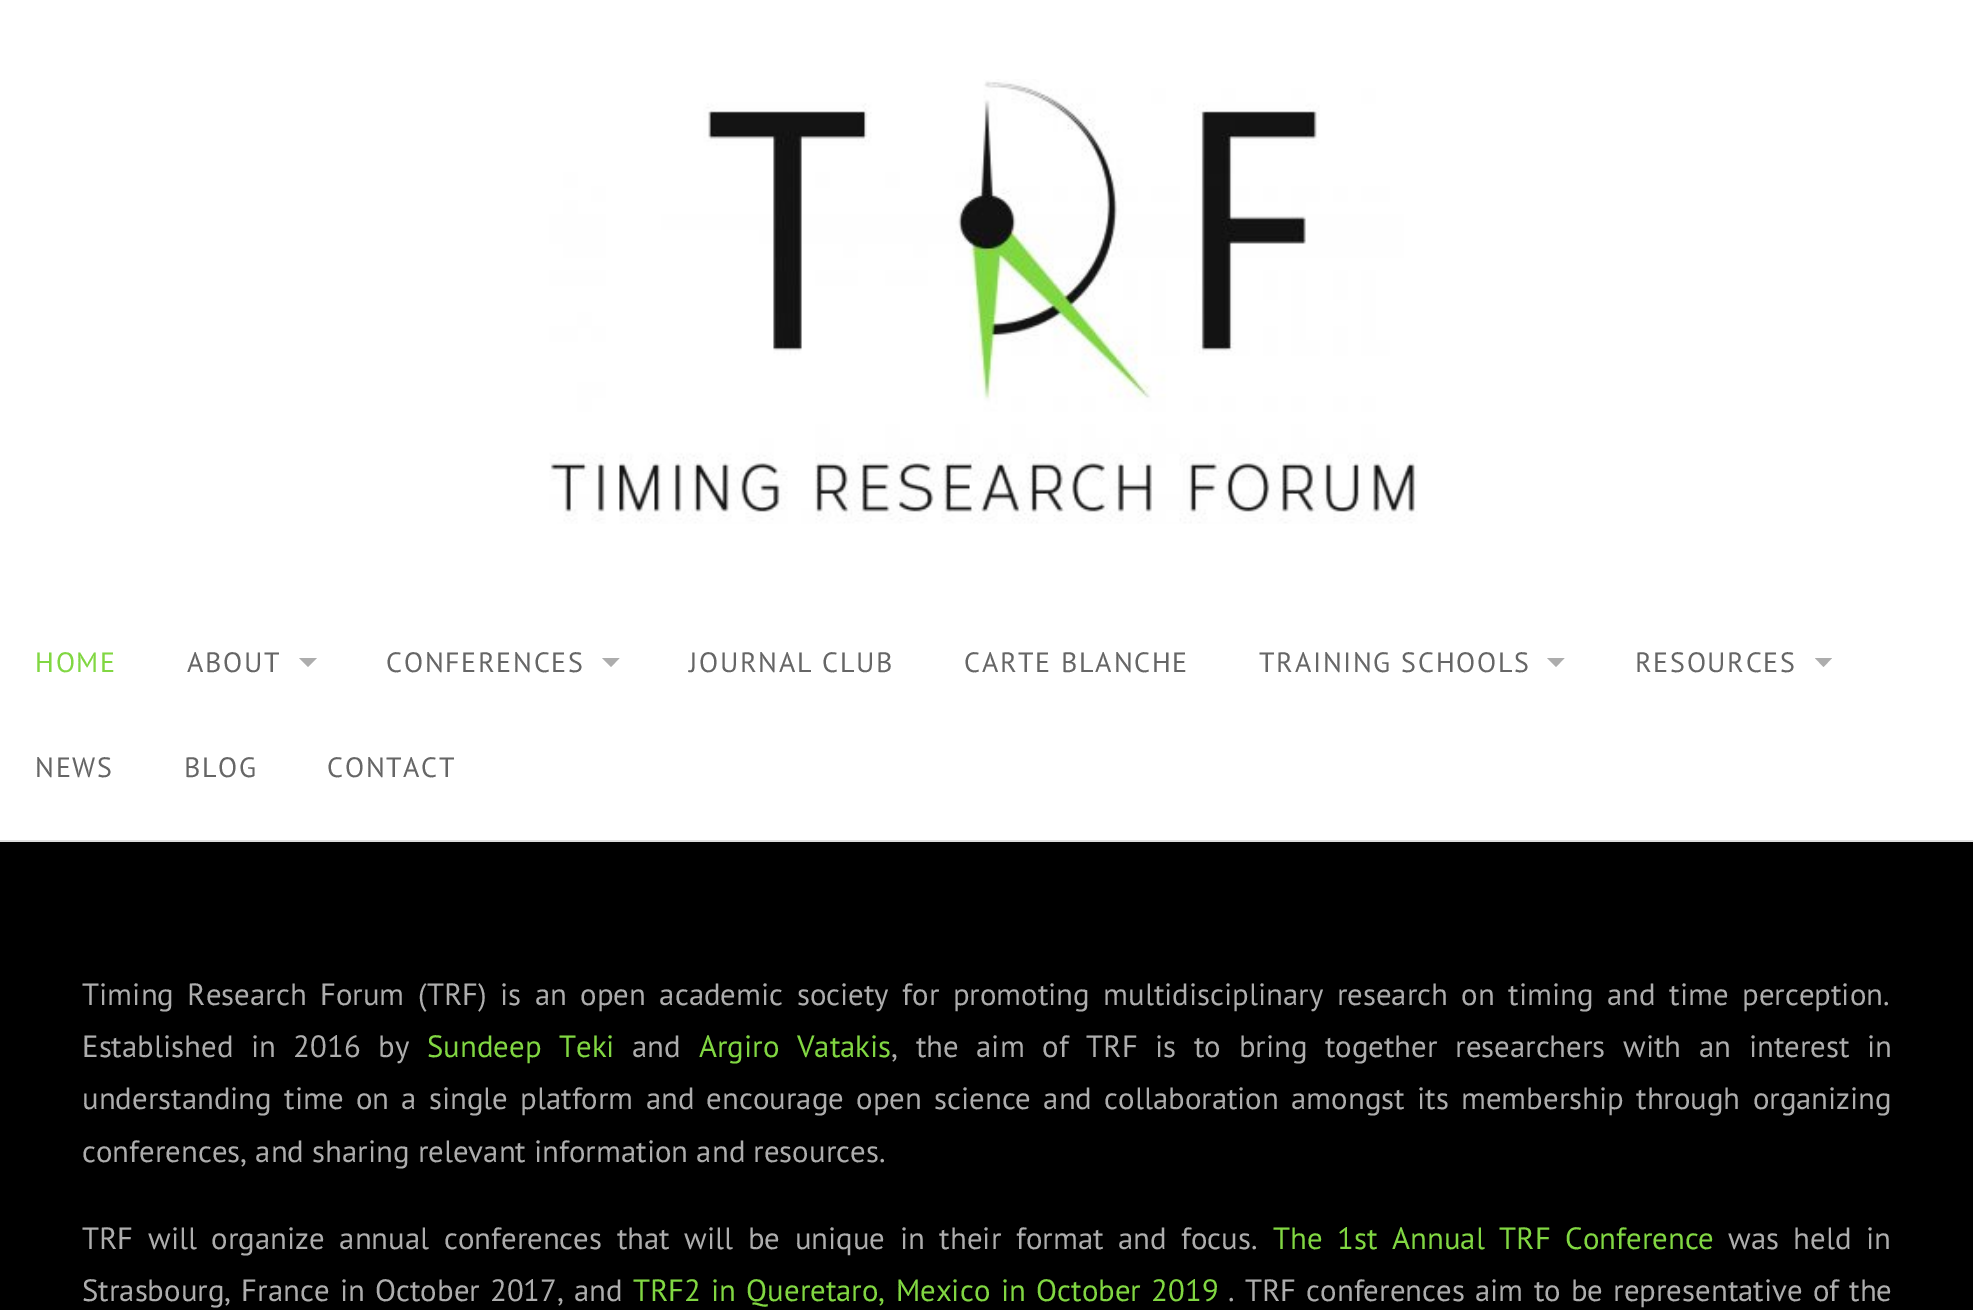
%!PS-Adobe-3.0
%%BoundingBox: 0 0 1973 1310
%%LanguageLevel: 3
%%Pages: 1
%%EndComments
%%BeginProlog
/setink { dup -16 bitshift 255 div exch dup -8 bitshift 255 and 255 div exch 255 and 255 div setrgbcolor } def
/usefont { [ exch dup neg 0 0 3 -1 roll 0 0 ] selectfont } def
/drawimage { 5 dict begin { /h /w /y /x /name } { exch def } forall
  gsave x y translate w h scale
  w h 8 [w 0 0 h 0 0] name (r) file false 3 colorimage grestore end } def
%%EndProlog
%%BeginSetup
<< /PageSize [1973 1310] >> setpagedevice
%%EndSetup
%%Page: 1 1
0 1310 translate 1 -1 scale
4 setmiterlimit
16#FFFFFF setink
0 0 1973 1310 rectfill
(img1.raw) 549 79 869 445 drawimage
/PTSans-Regular 28 usefont
16#81D742 setink
35 672 moveto 1.7 0 (HOME) ashow
16#666666 setink
187 672 moveto 1.7 0 (ABOUT) ashow
16#ADADAD setink
299 658 moveto 317 658 lineto 308 667 lineto closepath fill
16#666666 setink
386 672 moveto 1.7 0 (CONFERENCES) ashow
16#ADADAD setink
602 658 moveto 619.5 658 lineto 611 667 lineto closepath fill
16#666666 setink
689 672 moveto 1.7 0 (JOURNAL CLUB) ashow
964 672 moveto 1.7 0 (CARTE BLANCHE) ashow
1259 672 moveto 1.7 0 (TRAINING SCHOOLS) ashow
16#ADADAD setink
1547 658 moveto 1564.5 658 lineto 1556 667 lineto closepath fill
16#666666 setink
1635 672 moveto 1.7 0 (RESOURCES) ashow
16#ADADAD setink
1815 658 moveto 1832 658 lineto 1823.5 667 lineto closepath fill
16#666666 setink
35 777 moveto 1.7 0 (NEWS) ashow
184 777 moveto 1.7 0 (BLOG) ashow
327 777 moveto 1.7 0 (CONTACT) ashow
16#DDDDDD setink
0 840 1973 2 rectfill
16#000000 setink
0 842 1973 468 rectfill
/PTSans-Regular 30.8 usefont
16#ADADAD setink
82 1005 moveto 5.25 0 32 (Timing Research Forum \(TRF\) is an open academic society for promoting multidisciplinary research on timing and time perception.) widthshow
82 1057 moveto 9.4 0 32 (Established in 2016 by) widthshow
16#81D742 setink
427 1057 moveto 9.4 0 32 (Sundeep Teki) widthshow
16#ADADAD setink
632 1057 moveto (and) show
16#81D742 setink
699 1057 moveto 9.4 0 32 (Argiro Vatakis) widthshow
16#ADADAD setink
891 1057 moveto 9.4 0 32 (, the aim of TRF is to bring together researchers with an interest in) widthshow
82 1109 moveto 4 0 32 (understanding time on a single platform and encourage open science and collaboration amongst its membership through organizing) widthshow
82 1162 moveto (conferences, and sharing relevant information and resources.) show
82 1249 moveto 6.4 0 32 (TRF will organize annual conferences that will be unique in their format and focus.) widthshow
16#81D742 setink
1273 1249 moveto 6.4 0 32 (The 1st Annual TRF Conference) widthshow
16#ADADAD setink
1728 1249 moveto 6.4 0 32 (was held in) widthshow
82 1301 moveto 2 0 32 (Strasbourg, France in October 2017, and) widthshow
16#81D742 setink
633 1301 moveto (TRF2) show
711 1301 moveto 2 0 32 (in Queretaro, Mexico) widthshow
1001 1301 moveto 2 0 32 (in October 2019) widthshow
16#ADADAD setink
1228 1301 moveto 2 0 32 (. TRF conferences aim to be representative of the) widthshow
showpage
%%EOF
